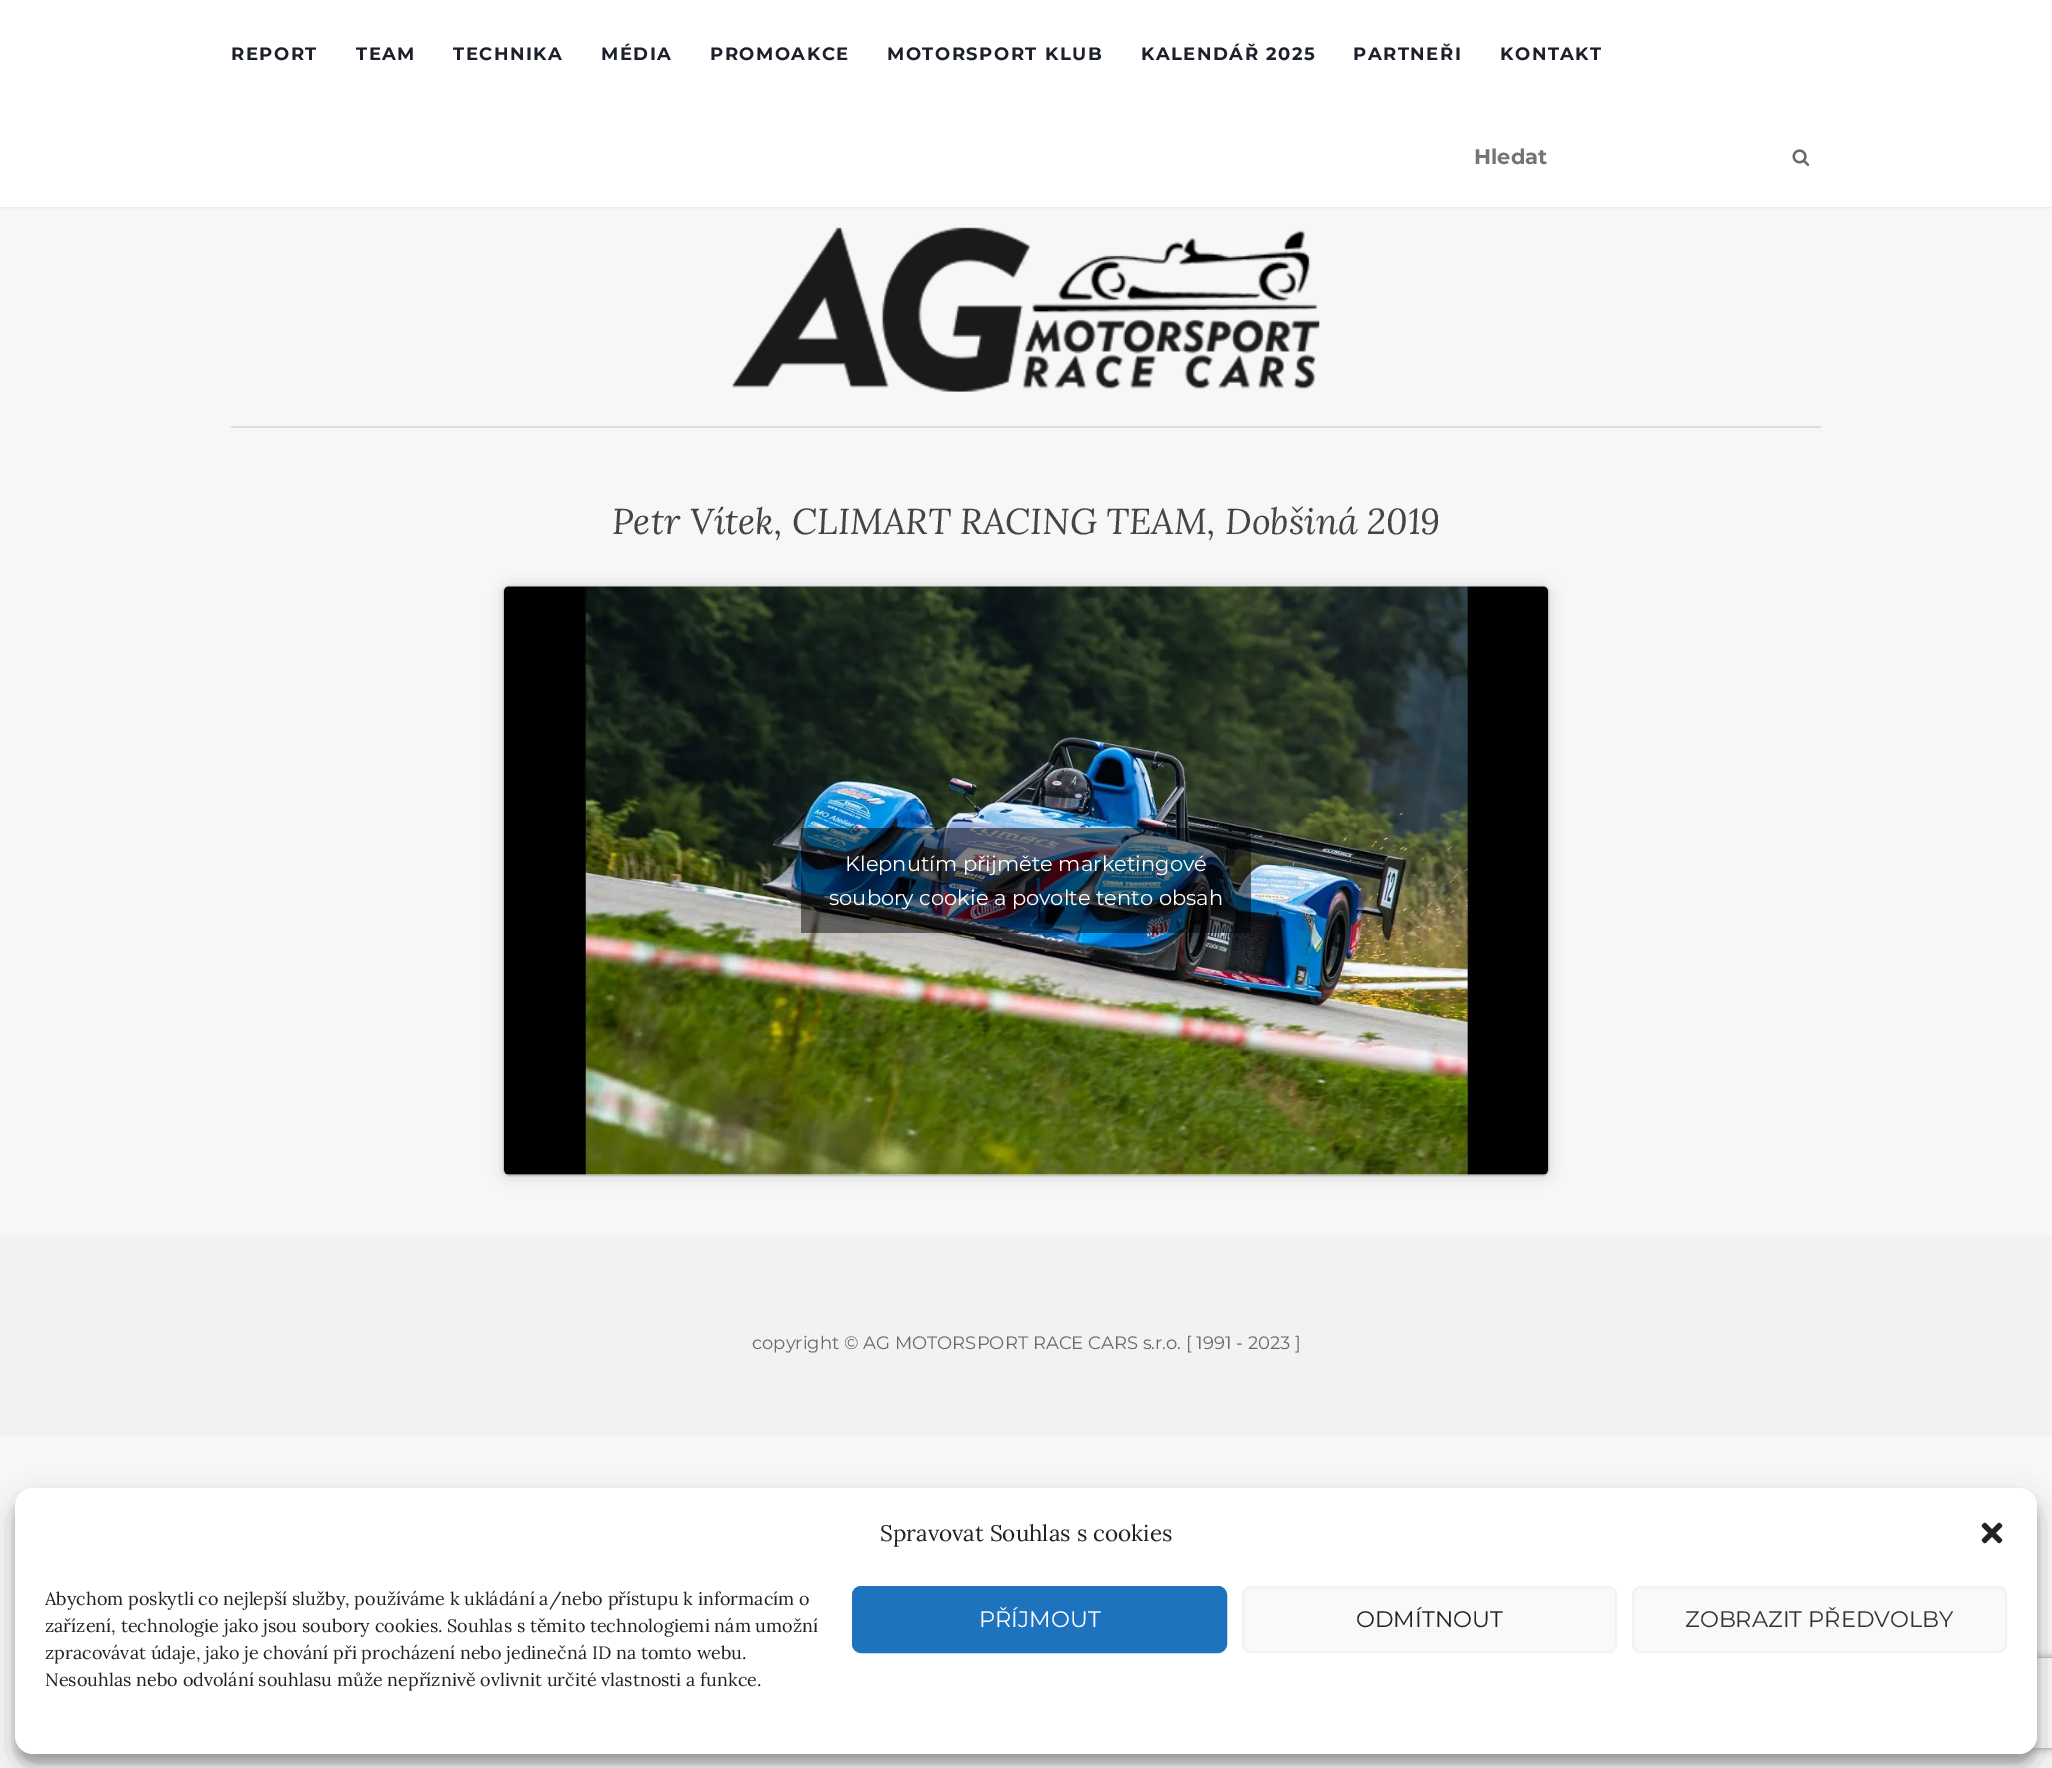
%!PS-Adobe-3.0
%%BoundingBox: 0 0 2052 1768
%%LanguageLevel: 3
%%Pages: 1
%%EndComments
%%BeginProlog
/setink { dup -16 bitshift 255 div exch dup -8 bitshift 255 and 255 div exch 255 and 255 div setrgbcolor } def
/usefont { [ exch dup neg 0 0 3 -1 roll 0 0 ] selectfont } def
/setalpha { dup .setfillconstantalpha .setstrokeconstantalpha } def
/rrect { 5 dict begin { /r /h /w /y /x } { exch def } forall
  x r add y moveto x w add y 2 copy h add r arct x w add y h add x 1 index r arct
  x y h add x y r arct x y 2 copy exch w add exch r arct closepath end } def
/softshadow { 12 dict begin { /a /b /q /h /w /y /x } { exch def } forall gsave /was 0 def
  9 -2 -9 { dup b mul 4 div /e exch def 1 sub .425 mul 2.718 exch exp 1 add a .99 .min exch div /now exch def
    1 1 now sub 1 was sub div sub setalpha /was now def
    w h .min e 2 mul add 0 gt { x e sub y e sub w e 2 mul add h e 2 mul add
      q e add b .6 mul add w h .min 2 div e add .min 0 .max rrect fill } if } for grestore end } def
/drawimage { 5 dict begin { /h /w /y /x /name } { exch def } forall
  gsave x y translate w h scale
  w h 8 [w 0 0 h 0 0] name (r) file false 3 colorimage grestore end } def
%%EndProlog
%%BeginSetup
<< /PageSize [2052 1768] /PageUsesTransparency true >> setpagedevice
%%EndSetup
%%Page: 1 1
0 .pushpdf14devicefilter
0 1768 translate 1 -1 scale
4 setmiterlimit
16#F7F7F7 setink
0 0 2052 1768 rectfill
16#E3E3E3 setink
0 0 2052 207 0 1.5 1 softshadow
16#FFFFFF setink
0 0 2052 207 rectfill
/Montserrat-Bold 18 usefont
16#1C202A setink
231 60 moveto 1.5 0 (REPORT) ashow
356 60 moveto 1.5 0 (TEAM) ashow
453 60 moveto 1.5 0 (TECHNIKA) ashow
601 60 moveto 1.5 0 (MÉDIA) ashow
710 60 moveto 1.5 0 (PROMOAKCE) ashow
887 60 moveto 1.5 0 (MOTORSPORT KLUB) ashow
1141 60 moveto 1.5 0 (KALENDÁŘ 2025) ashow
1353 60 moveto 1.5 0 (PARTNEŘI) ashow
1500 60 moveto 1.5 0 (KONTAKT) ashow
/Montserrat-Bold 21 usefont
16#757575 setink
1474 164 moveto (Hledat) show
(img1.raw) 1792 149 18 17 drawimage
(img2.raw) 732 227 588 165 drawimage
16#DDDDDD setink
231 426 1590 2 rectfill
/Lora-Italic 36 usefont
16#444444 setink
612 534 moveto (Petr Vítek, CLIMART RACING TEAM, Dobšiná 2019) show
16#000000 setink
504 588 1044 588 5 7.5 0.15 softshadow
504 587 1044 588 5 1 0.5 softshadow
16#FFFFFF setink
504 587 1044 588 5 rrect fill
(img3.raw) 504 586 1044 589 drawimage
0.5 setalpha
16#000000 setink
801 828 450 105 rectfill
/Montserrat-Regular 21 usefont
1 setalpha
16#FFFFFF setink
845 871 moveto (Klepnutím přijměte marketingové) show
829 905 moveto (soubory cookie a povolte tento obsah) show
16#F2F2F2 setink
0 1235 2052 201 rectfill
/Montserrat-Regular 18 usefont
16#696969 setink
752 1349 moveto (copyright © AG MOTORSPORT RACE CARS s.r.o. [ 1991 - 2023 ]) show
16#000000 setink
15 1497 2022 266 18 4.5 0.23 softshadow
15 1503 2022 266 18 15 0.19 softshadow
gsave
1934 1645 moveto 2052 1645 lineto 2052 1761 lineto 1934 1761 lineto closepath 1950 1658 moveto 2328 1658 lineto 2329.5 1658 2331 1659.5 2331 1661 curveto 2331 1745 lineto 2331 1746.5 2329.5 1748 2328 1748 curveto 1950 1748 lineto 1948.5 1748 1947 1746.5 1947 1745 curveto 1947 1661 lineto 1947 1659.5 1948.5 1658 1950 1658 curveto closepath eoclip newpath
16#808080 setink
1947 1658 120 90 3 4 1 softshadow
grestore
16#FFFFFF setink
15 1488 2022 266 18 rrect fill
/Lora-Regular 22.5 usefont
16#222222 setink
880 1541 moveto (Spravovat Souhlas s cookies) show
(img4.raw) 1981 1522 22 22 drawimage
/Lora-Regular 18 usefont
[
    [(Abychom poskytli co nejlepší služby, používáme k ukládání a/nebo přístupu k informacím o) 45 1605]
    [(zařízení, technologie jako jsou soubory cookies. Souhlas s těmito technologiemi nám umožní) 45 1632]
    [(zpracovávat údaje, jako je chování při procházení nebo jedinečná ID na tomto webu.) 45 1659]
    [(Nesouhlas nebo odvolání souhlasu může nepříznivě ovlivnit určité vlastnosti a funkce.) 45 1686]
] { aload pop moveto show } forall
16#1E73BE setink
853 1587 373 65 8 rrect gsave fill grestore
2 setlinewidth
stroke
/Montserrat-Regular 22.5 usefont
16#FFFFFF setink
979 1627 moveto (PŘÍJMOUT) show
16#F9F9F9 setink
1243 1587 373 65 8 rrect gsave fill grestore
16#F2F2F2 setink
stroke
16#222222 setink
1356 1627 moveto (ODMÍTNOUT) show
16#F9F9F9 setink
1633 1587 373 65 8 rrect gsave fill grestore
16#F2F2F2 setink
stroke
16#333333 setink
1685 1627 moveto (ZOBRAZIT PŘEDVOLBY) show
.poppdf14devicefilter showpage
%%EOF
